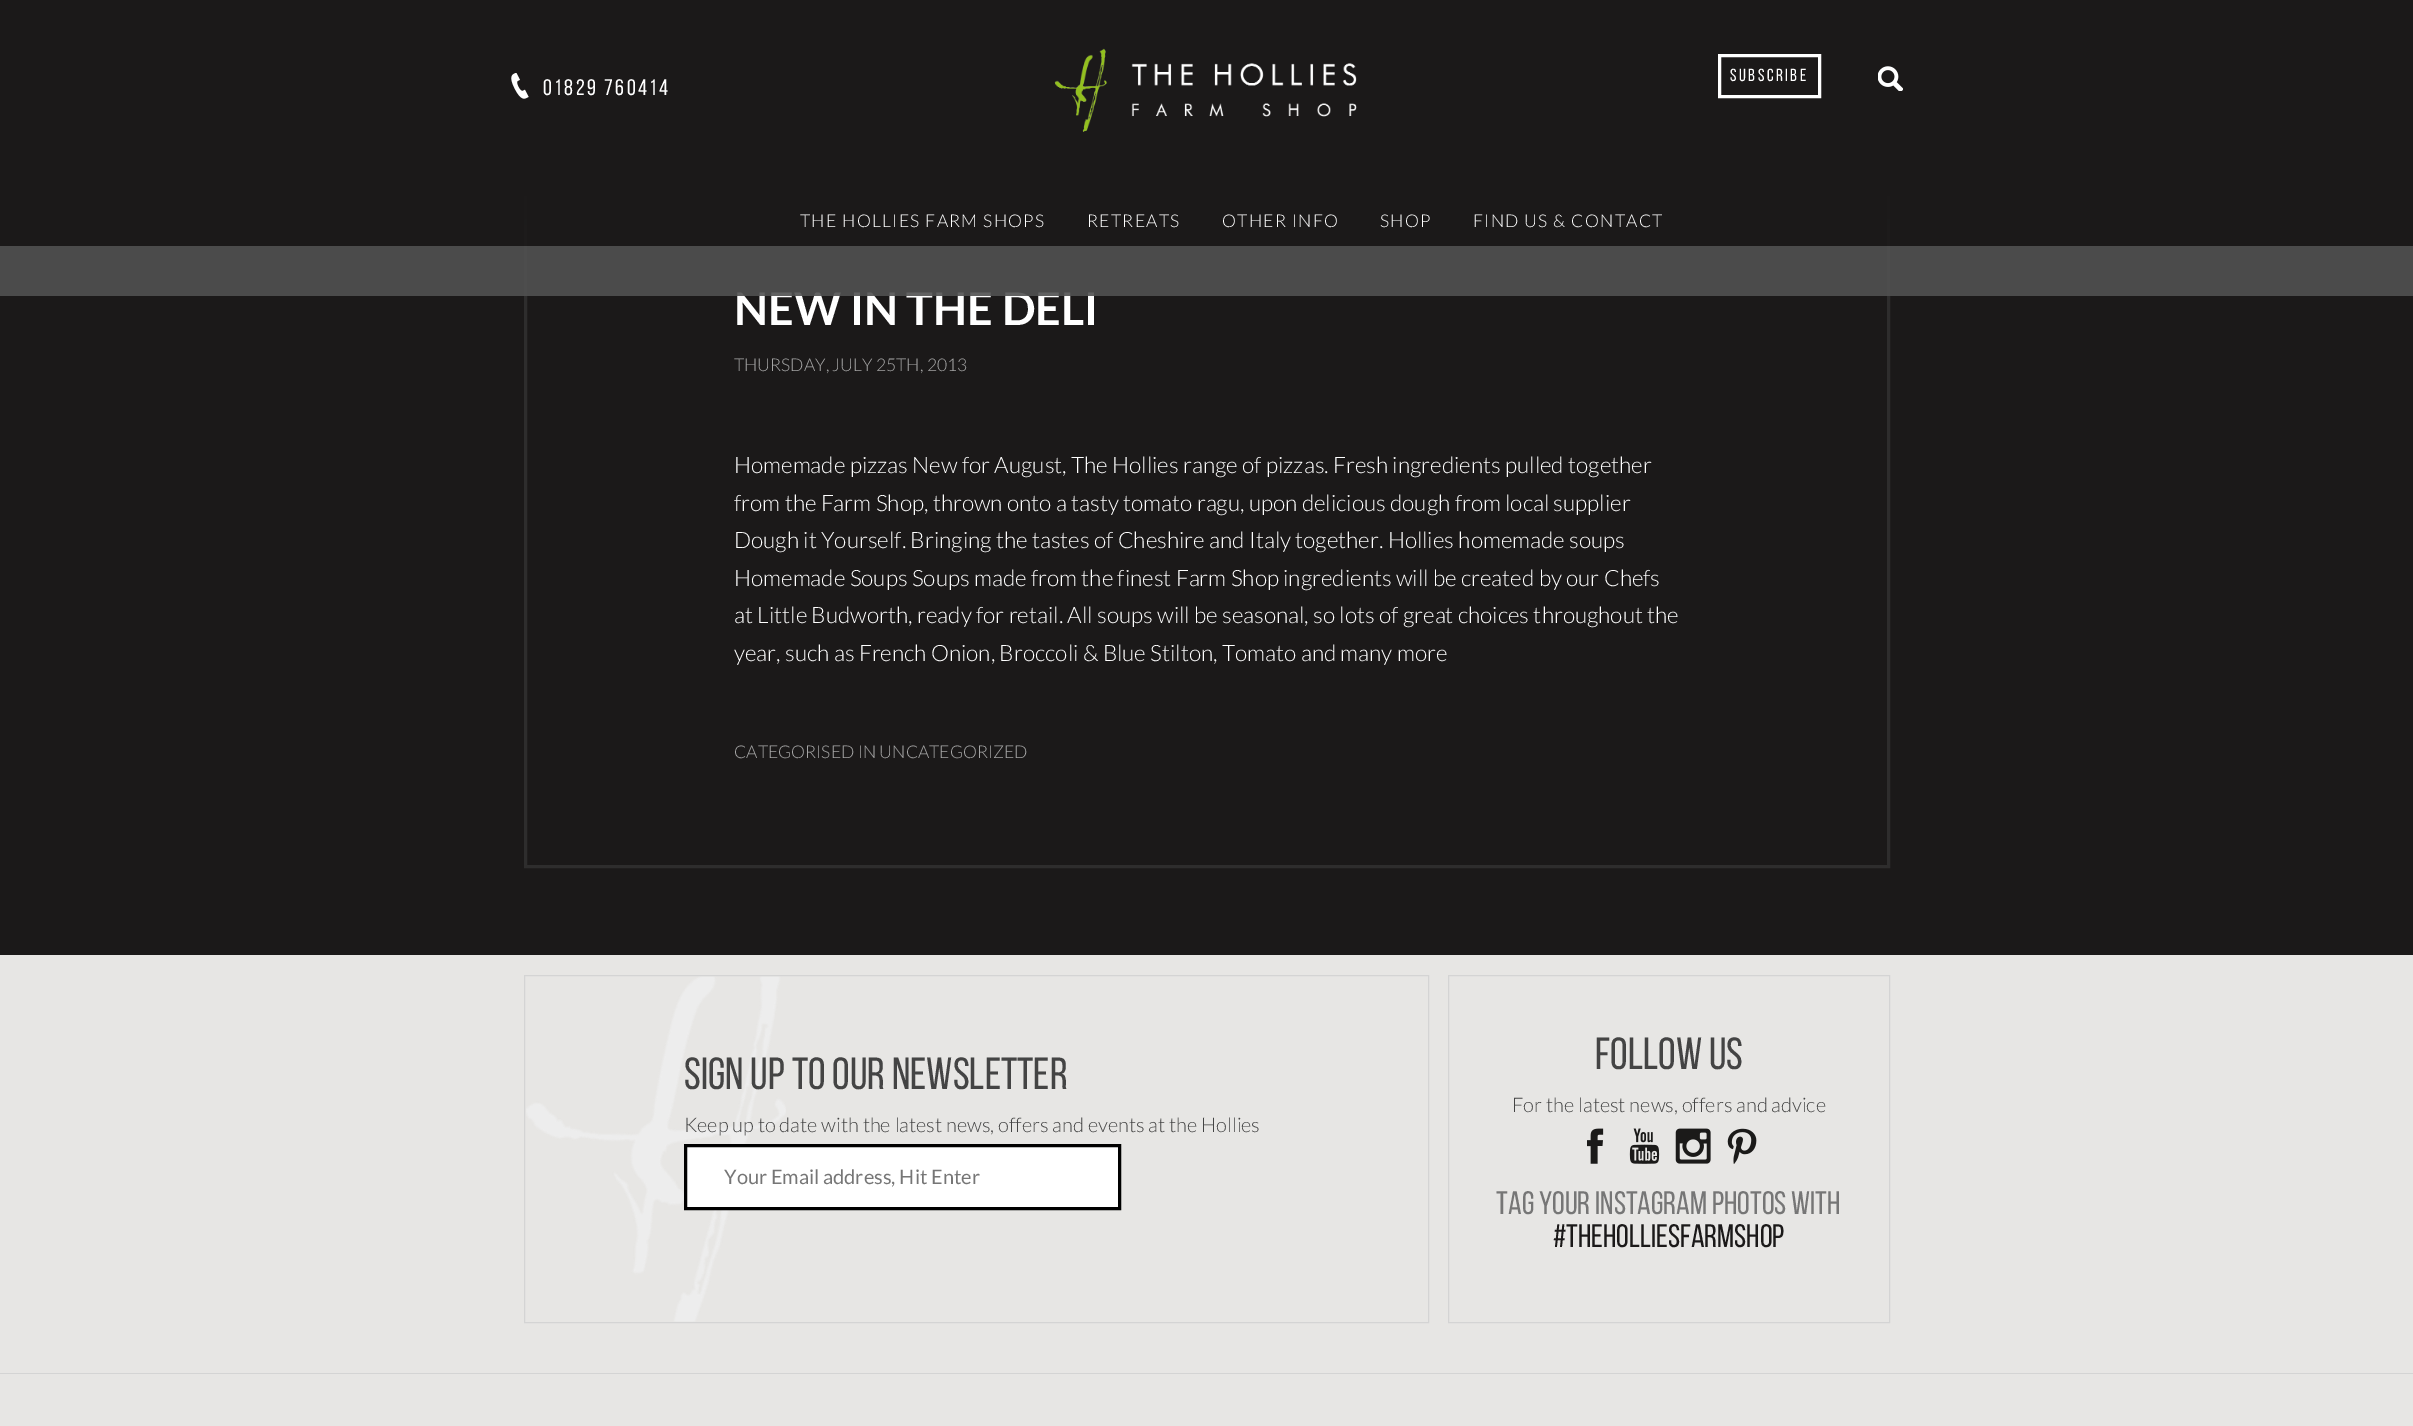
%!PS-Adobe-3.0
%%BoundingBox: 0 0 2413 1426
%%LanguageLevel: 3
%%Pages: 1
%%EndComments
%%BeginProlog
/setink { dup -16 bitshift 255 div exch dup -8 bitshift 255 and 255 div exch 255 and 255 div setrgbcolor } def
/usefont { [ exch dup neg 0 0 3 -1 roll 0 0 ] selectfont } def
/setalpha { dup .setfillconstantalpha .setstrokeconstantalpha } def
/drawimage { 5 dict begin { /h /w /y /x /name } { exch def } forall
  gsave x y translate w h scale
  w h 8 [w 0 0 h 0 0] name (r) file false 3 colorimage grestore end } def
%%EndProlog
%%BeginSetup
<< /PageSize [2413 1426] /PageUsesTransparency true >> setpagedevice
%%EndSetup
%%Page: 1 1
0 .pushpdf14devicefilter
0 1426 translate 1 -1 scale
4 setmiterlimit
16#E7E6E4 setink
0 0 2413 1426 rectfill
16#1B1919 setink
0 196 2413 759 rectfill
16#2E2D2D setink
3 setlinewidth
525.5 132.5 1363 734 rectstroke
(img1.raw) 0 196 2413 29 drawimage
16#1B1919 setink
0 0 2413 196 rectfill
(img2.raw) 1054 48 303 84 drawimage
16#FFFFFF setink
1719.5 55.5 100 41 rectstroke
/BebasNeue-Regular 17.5 usefont
1730 81 moveto 2.5 0 (Subscribe) ashow
(img3.raw) 1878 66 25 25 drawimage
(img4.raw) 511 73 18 26 drawimage
/BebasNeue-Regular 22.5 usefont
543 95 moveto 2.5 0 (01829 760414) ashow
0.9 setalpha
16#1B1919 setink
0 196 2413 50 rectfill
/Lato-Light 17.5 usefont
1 setalpha
16#FFFFFF setink
800 227 moveto 1.25 0 (THE HOLLIES FARM SHOPS) ashow
1087 227 moveto 1.25 0 (RETREATS) ashow
1222 227 moveto 1.25 0 (OTHER INFO) ashow
1380 227 moveto 1.25 0 (SHOP) ashow
1473 227 moveto 1.25 0 (FIND US & CONTACT) ashow
/Lato-Bold 45 usefont
734 325 moveto (NEW IN THE DELI) show
0.9 setalpha
16#505050 setink
0 246 2413 50 rectfill
/Lato-Light 17.5 usefont
1 setalpha
16#A6A6A6 setink
734 371 moveto (THURSDAY, JULY 25TH, 2013) show
/Lato-Light 22.5 usefont
16#FFFFFF setink
[
    [(Homemade pizzas New for August, The Hollies range of pizzas. Fresh ingredients pulled together) 734 473]
    [(from the Farm Shop, thrown onto a tasty tomato ragu, upon delicious dough from local supplier) 734 511]
    [(Dough it Yourself. Bringing the tastes of Cheshire and Italy together. Hollies homemade soups) 734 548]
    [(Homemade Soups Soups made from the finest Farm Shop ingredients will be created by our Chefs) 734 586]
    [(at Little Budworth, ready for retail. All soups will be seasonal, so lots of great choices throughout the) 734 623]
    [(year, such as French Onion, Broccoli & Blue Stilton, Tomato and many more) 734 661]
] { aload pop moveto show } forall
/Lato-Light 17.5 usefont
16#A6A6A6 setink
734 758 moveto (CATEGORISED IN UNCATEGORIZED) show
(img5.raw) 526 976 260 346 drawimage
16#D4D4D4 setink
1 setlinewidth
524.5 975.5 904 347 rectstroke
/BebasNeue-Regular 45 usefont
16#444444 setink
684 1089 moveto (SIGN UP TO OUR NEWSLETTER) show
/Lato-Light 20 usefont
684 1132 moveto (Keep up to date with the latest news, offers and events at the Hollies) show
16#FFFFFF setink
685.5 1145.5 moveto 1119.5 1145.5 lineto 1119.5 1208.5 lineto 685.5 1208.5 lineto closepath gsave fill grestore
16#000000 setink
3 setlinewidth
stroke
/Lato-Regular 20 usefont
16#767676 setink
724 1184 moveto (Your Email address, Hit Enter) show
16#D4D4D4 setink
1 setlinewidth
1448.5 975.5 441 347 rectstroke
/BebasNeue-Regular 45 usefont
16#444444 setink
1595 1069 moveto (FOLLOW US) show
/Lato-Light 20 usefont
1512 1112 moveto (For the latest news, offers and advice) show
(img6.raw) 1587 1128 17 36 drawimage
(img7.raw) 1629 1128 31 36 drawimage
(img8.raw) 1675 1128 36 36 drawimage
(img9.raw) 1727 1128 30 36 drawimage
/BebasNeue-Regular 32.5 usefont
16#767676 setink
1496 1214 moveto (Tag your Instagram photos with) show
16#1B1919 setink
1553 1247 moveto (#theholliesfarmshop) show
16#D4D4D4 setink
0 1373 2413 1 rectfill
.poppdf14devicefilter showpage
%%EOF
